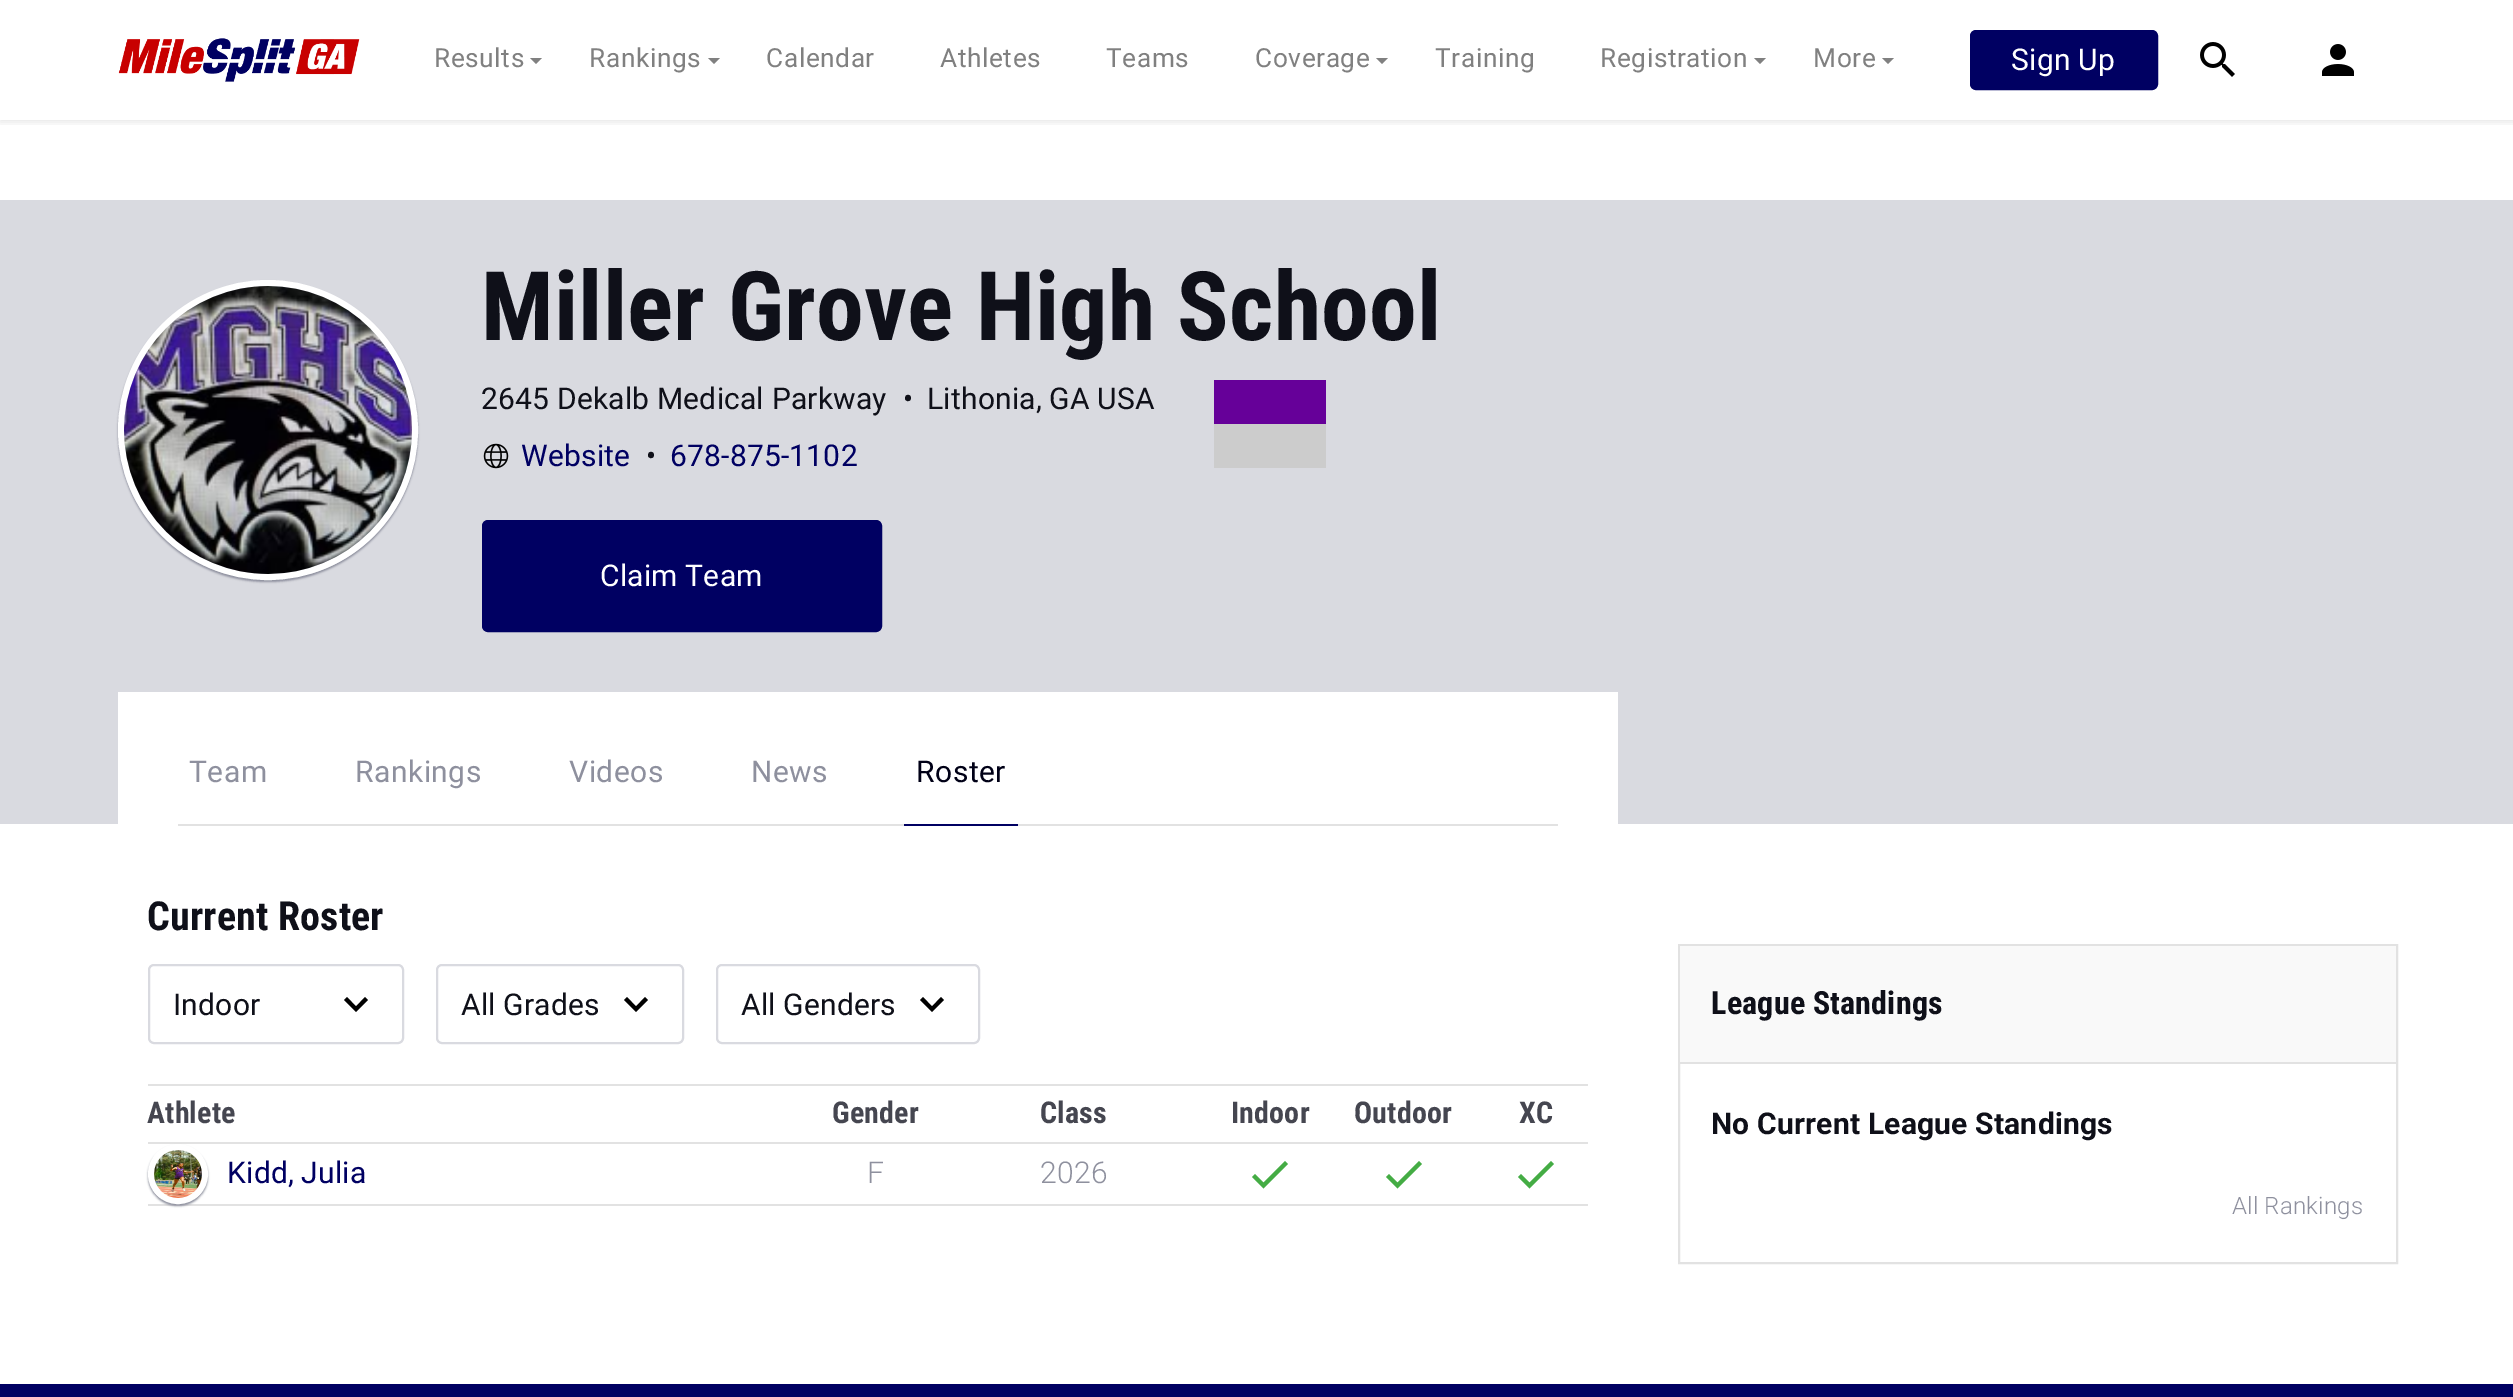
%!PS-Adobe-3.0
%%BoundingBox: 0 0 2513 1397
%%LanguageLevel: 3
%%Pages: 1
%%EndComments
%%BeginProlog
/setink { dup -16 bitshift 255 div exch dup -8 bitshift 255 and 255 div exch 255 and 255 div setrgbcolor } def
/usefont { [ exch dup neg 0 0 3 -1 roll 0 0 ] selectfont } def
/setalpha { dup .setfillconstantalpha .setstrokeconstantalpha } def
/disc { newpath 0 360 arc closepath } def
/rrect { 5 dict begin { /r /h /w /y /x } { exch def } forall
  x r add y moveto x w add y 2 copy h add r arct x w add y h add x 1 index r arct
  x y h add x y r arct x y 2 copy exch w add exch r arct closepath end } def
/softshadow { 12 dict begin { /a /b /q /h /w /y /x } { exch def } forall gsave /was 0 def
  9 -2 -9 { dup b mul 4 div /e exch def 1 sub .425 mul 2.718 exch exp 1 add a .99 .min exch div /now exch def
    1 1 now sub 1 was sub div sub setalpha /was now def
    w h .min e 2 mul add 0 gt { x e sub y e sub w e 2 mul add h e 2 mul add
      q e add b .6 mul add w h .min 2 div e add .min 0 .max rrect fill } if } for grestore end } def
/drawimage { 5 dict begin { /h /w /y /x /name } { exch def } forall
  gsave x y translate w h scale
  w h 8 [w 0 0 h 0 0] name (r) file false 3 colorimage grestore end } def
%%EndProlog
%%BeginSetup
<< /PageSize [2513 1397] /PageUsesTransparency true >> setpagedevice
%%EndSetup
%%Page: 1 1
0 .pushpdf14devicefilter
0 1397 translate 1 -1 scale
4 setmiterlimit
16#FFFFFF setink
0 0 2513 1397 rectfill
gsave
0 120 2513 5 rectclip
16#000000 setink
0 2 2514 120 0 4 0.1 softshadow
grestore
(img1.raw) 118 38 242 44 drawimage
/Roboto-Regular 26.25 usefont
16#808080 setink
434 67 moveto 0.6 0 (Results) ashow
530 58 moveto 542 58 lineto 536 64 lineto closepath fill
589 67 moveto 0.6 0 (Rankings) ashow
708 58 moveto 720 58 lineto 714 64 lineto closepath fill
766 67 moveto 0.6 0 (Calendar) ashow
940 67 moveto 0.6 0 (Athletes) ashow
1106 67 moveto 0.6 0 (Teams) ashow
1255 67 moveto 0.6 0 (Coverage) ashow
1376 58 moveto 1388 58 lineto 1382 64 lineto closepath fill
1435 67 moveto 0.6 0 (Training) ashow
1600 67 moveto 0.6 0 (Registration) ashow
1754 58 moveto 1766 58 lineto 1760 64 lineto closepath fill
1813 67 moveto 0.6 0 (More) ashow
1882 58 moveto 1894 58 lineto 1888 64 lineto closepath fill
16#000062 setink
1971 31 186 58 5 rrect gsave fill grestore
2 setlinewidth
stroke
/Roboto-Regular 30 usefont
16#FFFFFF setink
2011 70 moveto 0.2 0 (Sign Up) ashow
(img2.raw) 2200 42 35 35 drawimage
(img3.raw) 2322 44 32 32 drawimage
16#D9DAE0 setink
0 200 2513 624 rectfill
16#8E909E setink
118 282 300 300 150 1 1 softshadow
16#FFFFFF setink
6 setlinewidth
268 430 147 disc stroke
(img4.raw) 124 286 288 288 drawimage
/RobotoCondensed-Bold 96 usefont
16#0F1019 setink
481 340 moveto 0.2 0 (Miller Grove High School) ashow
/Roboto-Regular 30 usefont
481 409 moveto 0.2 0 (2645 Dekalb Medical Parkway) ashow
903 409 moveto 0.2 0 (•) ashow
927 409 moveto 0.2 0 (Lithonia, GA USA) ashow
(img5.raw) 483 443 26 26 drawimage
16#000062 setink
521 466 moveto 0.2 0 (Website) ashow
16#0F1019 setink
646 466 moveto 0.2 0 (•) ashow
16#000062 setink
670 466 moveto 0.2 0 (678-875-1102) ashow
16#660099 setink
1214 380 112 44 rectfill
16#CCCCCC setink
1214 424 112 44 rectfill
16#000062 setink
483 521 398 110 5 rrect gsave fill grestore
2 setlinewidth
stroke
16#FFFFFF setink
600 586 moveto 0.2 0 (Claim Team) ashow
118 692 1500 132 rectfill
16#E2E2E2 setink
178 824 1380 2 rectfill
16#8E909E setink
189 782 moveto 0.5 0 (Team) ashow
355 782 moveto 0.5 0 (Rankings) ashow
569 782 moveto 0.5 0 (Videos) ashow
751 782 moveto 0.5 0 (News) ashow
16#000062 setink
904 824 114 2 rectfill
16#000016 setink
916 782 moveto 0.5 0 (Roster) ashow
/RobotoCondensed-Bold 40 usefont
16#0F1019 setink
147 930 moveto 0.2 0 (Current Roster) ashow
16#D9DAE0 setink
149 965 254 78 5 rrect stroke
/Roboto-Regular 30 usefont
16#0F1019 setink
173 1015 moveto 0.2 0 (Indoor) ashow
16#000000 setink
347 997 moveto 356 1006.5 lineto 365 997 lineto 368 1000 lineto 356 1012 lineto 344 1000 lineto closepath fill
16#D9DAE0 setink
437 965 246 78 5 rrect stroke
16#0F1019 setink
461 1015 moveto 0.2 0 (All Grades) ashow
16#000000 setink
627 997 moveto 636 1006.5 lineto 645 997 lineto 648 1000 lineto 636 1012 lineto 624 1000 lineto closepath fill
16#D9DAE0 setink
717 965 262 78 5 rrect stroke
16#0F1019 setink
741 1015 moveto 0.2 0 (All Genders) ashow
16#000000 setink
923 997 moveto 932 1006.5 lineto 941 997 lineto 944 1000 lineto 932 1012 lineto 920 1000 lineto closepath fill
16#E2E2E2 setink
148 1084 1440 2 rectfill
148 1142 1440 2 rectfill
/RobotoCondensed-Bold 30 usefont
16#454650 setink
147 1123 moveto 0.2 0 (Athlete) ashow
832 1123 moveto 0.2 0 (Gender) ashow
1040 1123 moveto 0.2 0 (Class) ashow
1231 1123 moveto 0.2 0 (Indoor) ashow
1354 1123 moveto 0.2 0 (Outdoor) ashow
1519 1123 moveto 0.2 0 (XC) ashow
16#E2E2E2 setink
148 1204 1440 2 rectfill
16#8E909E setink
148 1146 60 60 30 1 1 softshadow
16#FFFFFF setink
6 setlinewidth
178 1174 27 disc stroke
(img6.raw) 154 1150 48 48 drawimage
/Roboto-Regular 30 usefont
16#000062 setink
227 1183 moveto 0.2 0 (Kidd, Julia) ashow
/Roboto-Light 30 usefont
16#8E909E setink
867 1183 moveto 0.2 0 (F) ashow
1040 1183 moveto 0.2 0 (2026) ashow
16#44AC44 setink
1263.5 1182.5 moveto 1255 1174 lineto 1252 1177 lineto 1263.5 1188.5 lineto 1288 1164 lineto 1285 1161 lineto closepath fill
1397.5 1182.5 moveto 1389 1174 lineto 1386 1177 lineto 1397.5 1188.5 lineto 1422 1164 lineto 1419 1161 lineto closepath fill
1529.5 1182.5 moveto 1521 1174 lineto 1518 1177 lineto 1529.5 1188.5 lineto 1554 1164 lineto 1551 1161 lineto closepath fill
16#E2E2E2 setink
2 setlinewidth
1679 945 718 318 rectstroke
16#F9F9F9 setink
1680 946 716 116 rectfill
16#E2E2E2 setink
1680 1062 716 2 rectfill
/RobotoCondensed-Bold 32 usefont
16#0F1019 setink
1711 1014 moveto 0.2 0 (League Standings) ashow
/Roboto-Bold 30 usefont
1711 1134 moveto 0.2 0 (No Current League Standings) ashow
/Roboto-Light 24 usefont
16#8E909E setink
2232 1214 moveto 0.2 0 (All Rankings) ashow
16#000062 setink
0 1384 2513 13 rectfill
.poppdf14devicefilter showpage
%%EOF
